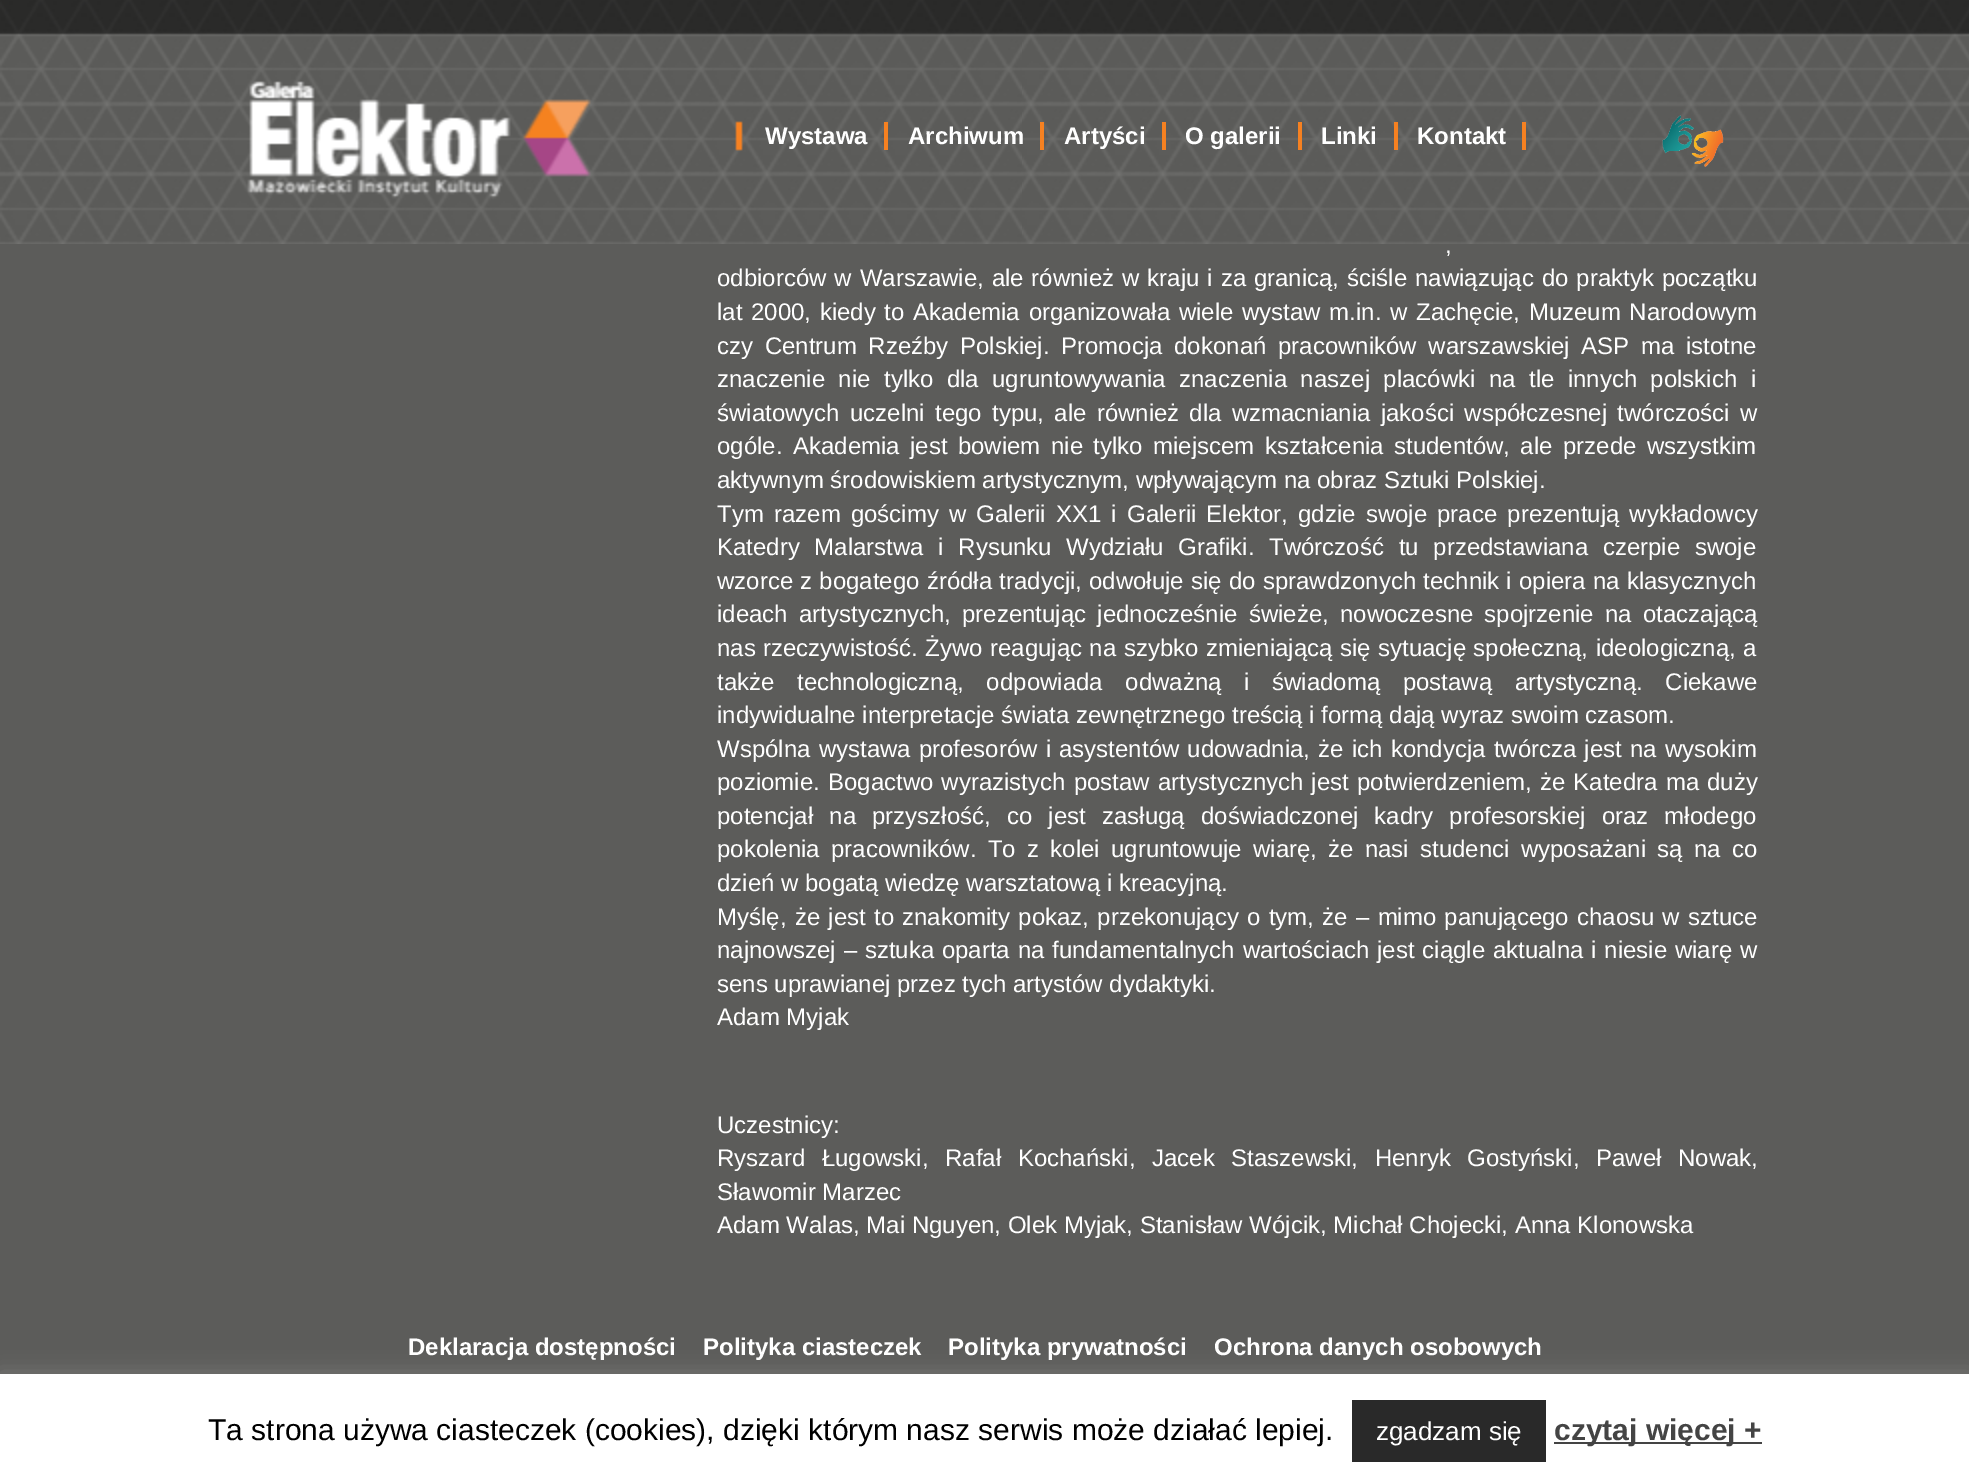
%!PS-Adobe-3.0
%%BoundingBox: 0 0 1969 1478
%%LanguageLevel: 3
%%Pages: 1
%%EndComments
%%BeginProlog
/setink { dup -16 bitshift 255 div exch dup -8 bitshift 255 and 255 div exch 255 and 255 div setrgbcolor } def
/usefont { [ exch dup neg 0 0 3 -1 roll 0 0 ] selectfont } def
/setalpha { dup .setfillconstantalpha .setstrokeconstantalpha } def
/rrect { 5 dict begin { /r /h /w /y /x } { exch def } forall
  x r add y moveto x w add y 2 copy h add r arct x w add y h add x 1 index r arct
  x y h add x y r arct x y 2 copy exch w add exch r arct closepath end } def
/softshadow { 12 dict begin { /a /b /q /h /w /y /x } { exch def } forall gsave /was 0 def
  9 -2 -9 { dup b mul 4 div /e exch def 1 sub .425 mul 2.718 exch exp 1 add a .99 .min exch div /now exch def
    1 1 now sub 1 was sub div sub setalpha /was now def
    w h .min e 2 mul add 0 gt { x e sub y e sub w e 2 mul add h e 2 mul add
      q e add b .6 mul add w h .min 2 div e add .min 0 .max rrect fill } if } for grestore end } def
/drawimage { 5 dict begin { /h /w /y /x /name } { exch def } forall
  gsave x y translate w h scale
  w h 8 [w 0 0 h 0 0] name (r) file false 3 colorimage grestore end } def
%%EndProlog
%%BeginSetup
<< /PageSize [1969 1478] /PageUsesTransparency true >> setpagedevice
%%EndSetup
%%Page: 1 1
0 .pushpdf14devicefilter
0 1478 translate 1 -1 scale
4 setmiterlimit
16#5C5C5A setink
0 0 1969 1478 rectfill
(img1.raw) 0 0 1969 244 drawimage
(img2.raw) 735 121 8 30 drawimage
16#F68121 setink
884 122 4 28 rectfill
/LiberationSans-Bold 24 usefont
16#FFFFFF setink
765 144 moveto (Wystawa) show
16#F68121 setink
1040 122 4 28 rectfill
16#FFFFFF setink
908 144 moveto (Archiwum) show
16#F68121 setink
1162 122 4 28 rectfill
16#FFFFFF setink
1064 144 moveto (Artyści) show
16#F68121 setink
1298 122 4 28 rectfill
16#FFFFFF setink
1185 144 moveto (O galerii) show
16#F68121 setink
1394 122 4 28 rectfill
16#FFFFFF setink
1321 144 moveto (Linki) show
16#F68121 setink
1522 122 4 28 rectfill
16#FFFFFF setink
1417 144 moveto (Kontakt) show
(img3.raw) 1662 115 62 52 drawimage
/LiberationSans-Regular 24 usefont
1445 253 moveto 6 0 32 (,) widthshow
717 286 moveto 1.25 0 32 (odbiorców w Warszawie, ale również w kraju i za granicą, ściśle nawiązując do praktyk początku) widthshow
717 320 moveto 2 0 32 (lat 2000, kiedy to Akademia organizowała wiele wystaw m.in. w Zachęcie, Muzeum Narodowym) widthshow
717 354 moveto 5 0 32 (czy Centrum Rzeźby Polskiej. Promocja dokonań pracowników warszawskiej ASP ma istotne) widthshow
717 387 moveto 6.75 0 32 (znaczenie nie tylko dla ugruntowywania znaczenia naszej placówki na tle innych polskich i) widthshow
717 421 moveto 3.6 0 32 (światowych uczelni tego typu, ale również dla wzmacniania jakości współczesnej twórczości w) widthshow
717 454 moveto 3.75 0 32 (ogóle. Akademia jest bowiem nie tylko miejscem kształcenia studentów, ale przede wszystkim) widthshow
717 488 moveto (aktywnym środowiskiem artystycznym, wpływającym na obraz Sztuki Polskiej.) show
717 522 moveto 3.5 0 32 (Tym razem gościmy w Galerii XX1 i Galerii Elektor, gdzie swoje prace prezentują wykładowcy) widthshow
717 555 moveto 8 0 32 (Katedry Malarstwa i Rysunku Wydziału Grafiki. Twórczość tu przedstawiana czerpie swoje) widthshow
717 589 moveto 0.5 0 32 (wzorce z bogatego źródła tradycji, odwołuje się do sprawdzonych technik i opiera na klasycznych) widthshow
717 622 moveto 4.5 0 32 (ideach artystycznych, prezentując jednocześnie świeże, nowoczesne spojrzenie na otaczającą) widthshow
717 656 moveto 0.75 0 32 (nas rzeczywistość. Żywo reagując na szybko zmieniającą się sytuację społeczną, ideologiczną, a) widthshow
717 690 moveto 16 0 32 (także technologiczną, odpowiada odważną i świadomą postawą artystyczną. Ciekawe) widthshow
717 723 moveto (indywidualne interpretacje świata zewnętrznego treścią i formą dają wyraz swoim czasom.) show
717 757 moveto 1.5 0 32 (Wspólna wystawa profesorów i asystentów udowadnia, że ich kondycja twórcza jest na wysokim) widthshow
717 790 moveto 1.5 0 32 (poziomie. Bogactwo wyrazistych postaw artystycznych jest potwierdzeniem, że Katedra ma duży) widthshow
717 824 moveto 9.5 0 32 (potencjał na przyszłość, co jest zasługą doświadczonej kadry profesorskiej oraz młodego) widthshow
717 857 moveto 4.6 0 32 (pokolenia pracowników. To z kolei ugruntowuje wiarę, że nasi studenci wyposażani są na co) widthshow
717 891 moveto (dzień w bogatą wiedzę warsztatową i kreacyjną.) show
717 925 moveto 1.6 0 32 (Myślę, że jest to znakomity pokaz, przekonujący o tym, że – mimo panującego chaosu w sztuce) widthshow
717 958 moveto 1.1 0 32 (najnowszej – sztuka oparta na fundamentalnych wartościach jest ciągle aktualna i niesie wiarę w) widthshow
[
    [(sens uprawianej przez tych artystów dydaktyki.) 717 992]
    [(Adam Myjak) 717 1025]
    [(Uczestnicy:) 717 1133]
] { aload pop moveto show } forall
717 1166 moveto 10 0 32 (Ryszard Ługowski, Rafał Kochański, Jacek Staszewski, Henryk Gostyński, Paweł Nowak,) widthshow
717 1200 moveto (Sławomir Marzec) show
717 1233 moveto (Adam Walas, Mai Nguyen, Olek Myjak, Stanisław Wójcik, Michał Chojecki, Anna Klonowska) show
/LiberationSans-Bold 24 usefont
[
    [(Deklaracja dostępności) 408 1355]
    [(Polityka ciasteczek) 703 1355]
    [(Polityka prywatności) 948 1355]
    [(Ochrona danych osobowych) 1214 1355]
] { aload pop moveto show } forall
16#ACABAB setink
0 1372 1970 104 0 10 0.3 softshadow
16#FFFFFF setink
0 1374 1969 104 rectfill
/LiberationSans-Regular 30 usefont
16#000000 setink
208 1440 moveto (Ta strona używa ciasteczek \(cookies\), dzięki którym nasz serwis może działać lepiej.) show
16#292929 setink
1352 1400 194 62 rectfill
/LiberationSans-Regular 26 usefont
16#FFFFFF setink
1376 1440 moveto (zgadzam się) show
16#444444 setink
1554 1442 208 2 rectfill
/LiberationSans-Bold 30 usefont
1554 1440 moveto (czytaj więcej +) show
.poppdf14devicefilter showpage
%%EOF
